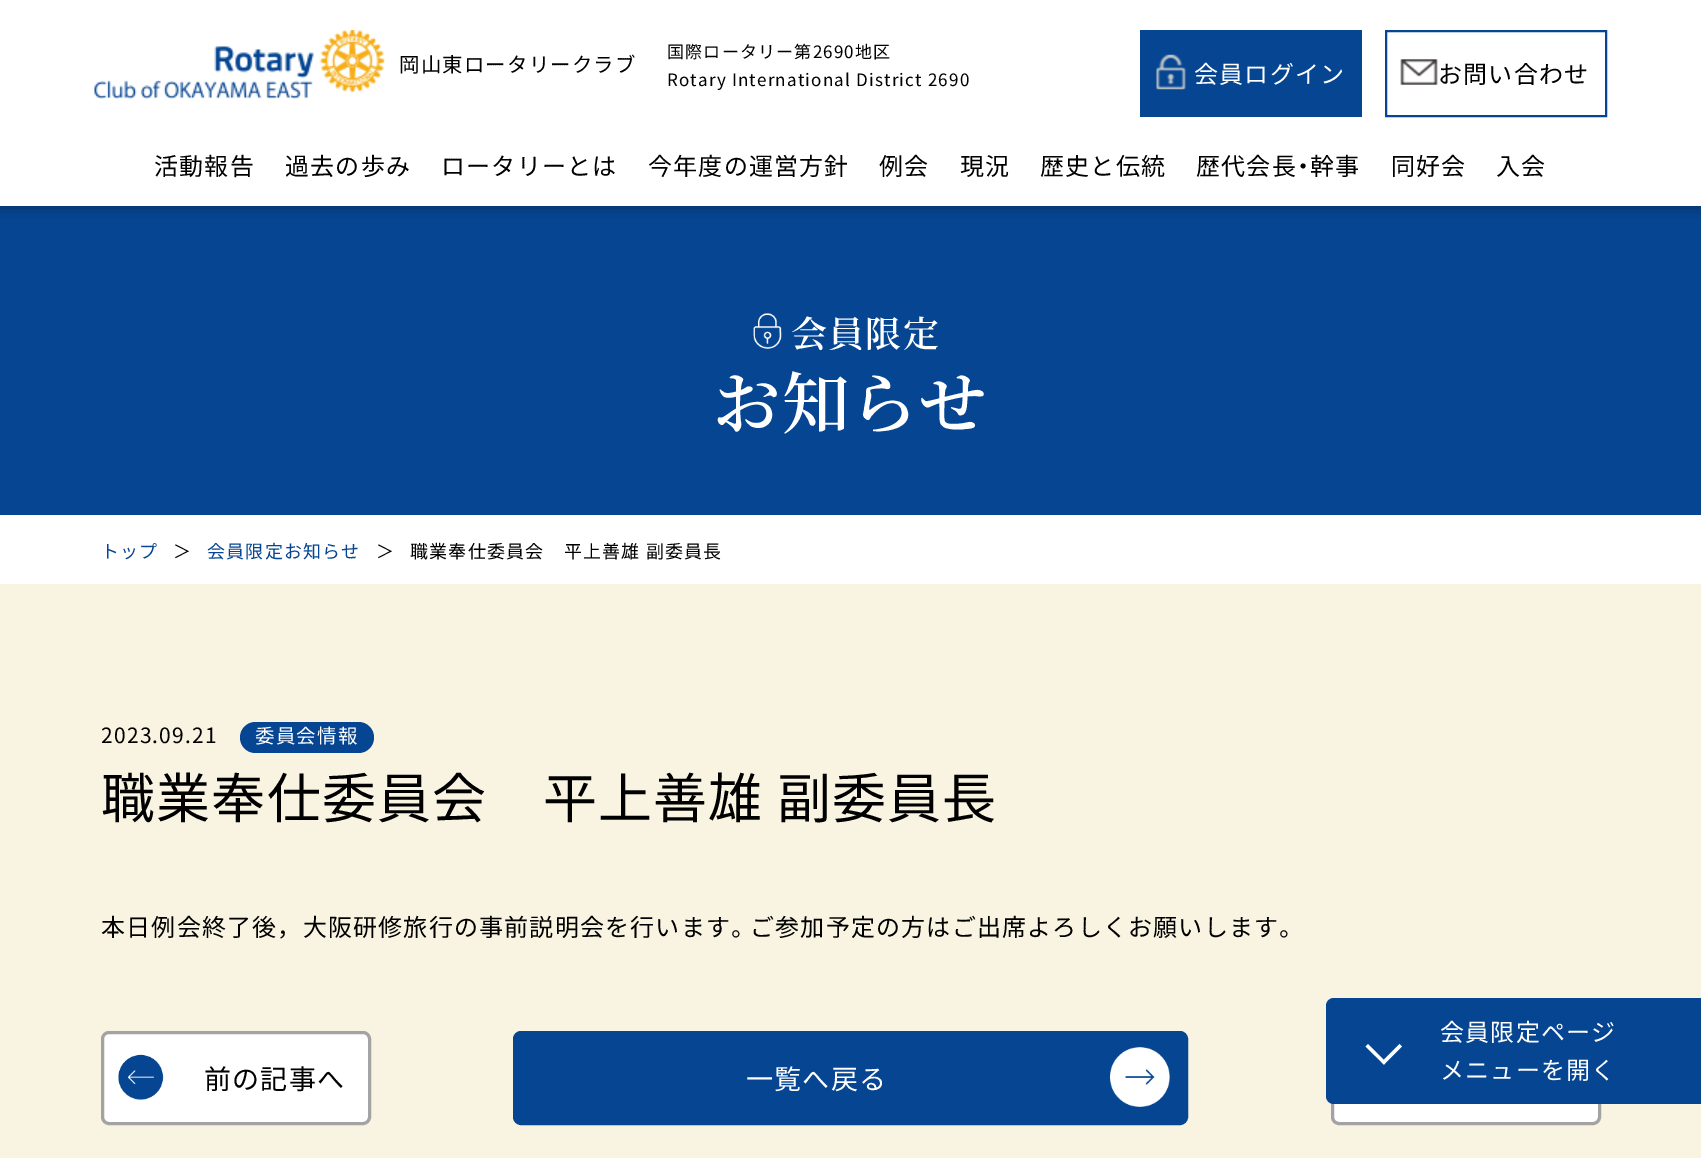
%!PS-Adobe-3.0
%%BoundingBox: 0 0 1701 1158
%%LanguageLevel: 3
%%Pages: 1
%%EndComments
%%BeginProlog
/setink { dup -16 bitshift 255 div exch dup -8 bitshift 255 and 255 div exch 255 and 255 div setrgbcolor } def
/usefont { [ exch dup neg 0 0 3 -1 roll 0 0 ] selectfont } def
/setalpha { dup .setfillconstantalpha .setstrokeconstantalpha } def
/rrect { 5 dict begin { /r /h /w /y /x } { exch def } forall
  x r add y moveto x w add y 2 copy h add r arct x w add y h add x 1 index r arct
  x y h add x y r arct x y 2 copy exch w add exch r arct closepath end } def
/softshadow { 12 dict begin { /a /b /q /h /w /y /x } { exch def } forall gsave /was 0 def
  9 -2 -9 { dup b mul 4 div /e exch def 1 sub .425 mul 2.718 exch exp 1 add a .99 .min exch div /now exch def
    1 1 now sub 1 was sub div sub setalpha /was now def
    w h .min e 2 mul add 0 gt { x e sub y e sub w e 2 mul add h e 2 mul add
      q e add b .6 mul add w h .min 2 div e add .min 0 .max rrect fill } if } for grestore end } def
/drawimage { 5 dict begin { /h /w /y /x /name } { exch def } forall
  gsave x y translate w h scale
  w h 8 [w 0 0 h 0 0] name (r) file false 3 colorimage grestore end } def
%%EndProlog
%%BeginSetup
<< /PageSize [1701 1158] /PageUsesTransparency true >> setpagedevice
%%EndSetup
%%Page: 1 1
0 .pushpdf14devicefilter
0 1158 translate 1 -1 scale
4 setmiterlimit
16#FFFFFF setink
0 0 1701 1158 rectfill
16#054592 setink
0 206 1701 309 rectfill
16#000000 setink
0 -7 1701 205 0 9 1 softshadow
16#FFFFFF setink
0 0 1701 206 rectfill
(img1.raw) 94 30 291 69 drawimage
/NotoSansJP-Regular 20.4 usefont
16#000000 setink
399 72 moveto 1.2 0 (岡山東ロータリークラブ) ashow
/NotoSansJP-Regular 17 usefont
667 58 moveto 1.2 0 (国際ロータリー第2690地区) ashow
667 86 moveto 1.2 0 (Rotary International District 2690) ashow
16#054592 setink
1140 30 222 87 rectfill
(img2.raw) 1156 54 30 36 drawimage
/NotoSansJP-Regular 24 usefont
16#FFFFFF setink
1194 83 moveto 1.2 0 (会員ログイン) ashow
16#054592 setink
2 setlinewidth
1386 31 220 85 rectstroke
(img3.raw) 1400 59 38 26 drawimage
16#000000 setink
1438 83 moveto 1.2 0 (お問い合わせ) ashow
154 175 moveto 1.2 0 (活動報告) ashow
285 175 moveto 1.2 0 (過去の歩み) ashow
441 175 moveto 1.2 0 (ロータリーとは) ashow
648 175 moveto 1.2 0 (今年度の運営方針) ashow
879 175 moveto 1.2 0 (例会) ashow
960 175 moveto 1.2 0 (現況) ashow
1040 175 moveto 1.2 0 (歴史と伝統) ashow
1196 175 moveto 1.2 0 (歴代会長) ashow
/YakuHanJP-Regular 24 usefont
1297 175 moveto 1.2 0 (・) ashow
/NotoSansJP-Regular 24 usefont
1310 175 moveto 1.2 0 (幹事) ashow
1391 175 moveto 1.2 0 (同好会) ashow
1496 175 moveto 1.2 0 (入会) ashow
(img4.raw) 753 313 29 36 drawimage
/NotoSerifJP-SemiBold 36 usefont
16#FFFFFF setink
791 347 moveto 1.2 0 (会員限定) ashow
/NotoSerifJP-SemiBold 67.5 usefont
713 428 moveto 1.2 0 (お知らせ) ashow
/NotoSansJP-Regular 18 usefont
16#054592 setink
101 558 moveto 1.2 0 (トップ) ashow
16#000000 setink
173 558 moveto 1.2 0 (＞) ashow
16#054592 setink
207 558 moveto 1.2 0 (会員限定お知らせ) ashow
16#000000 setink
376 558 moveto 1.2 0 (＞) ashow
410 558 moveto 1.2 0 (職業奉仕委員会　平上善雄 副委員長) ashow
16#F9F4E1 setink
0 584 1701 574 rectfill
/NotoSansJP-Regular 21 usefont
16#000000 setink
101 743 moveto 1.2 0 (2023.09.21) ashow
16#054592 setink
240 722 134 31 15.5 rrect fill
/NotoSansJP-Regular 19.5 usefont
16#FFFFFF setink
255 743 moveto 1.2 0 (委員会情報) ashow
/NotoSansJP-Regular 54 usefont
16#000000 setink
101 818 moveto 1.2 0 (職業奉仕委員会　平上善雄 副委員長) ashow
/NotoSansJP-Regular 24 usefont
101 936 moveto 1.2 0 (本日例会終了後，大阪研修旅行の事前説明会を行います) ashow
/YakuHanJP-Regular 24 usefont
731 936 moveto 1.2 0 (。) ashow
/NotoSansJP-Regular 24 usefont
750 936 moveto 1.2 0 (ご参加予定の方はご出席よろしくお願いします) ashow
/YakuHanJP-Regular 24 usefont
1279 936 moveto 1.2 0 (。) ashow
16#FFFFFF setink
102.5 1032.5 267 91 6.5 rrect gsave fill grestore
16#A3A3A3 setink
3 setlinewidth
stroke
(img5.raw) 118 1054 46 46 drawimage
/NotoSansJP-Regular 27 usefont
16#000000 setink
204 1089 moveto 1.2 0 (前の記事へ) ashow
16#054592 setink
514.5 1032.5 672 91 6.5 rrect gsave fill grestore
stroke
16#FFFFFF setink
746 1089 moveto 1.2 0 (一覧へ戻る) ashow
(img6.raw) 1110 1047 60 60 drawimage
1332.5 1032.5 267 91 6.5 rrect gsave fill grestore
16#A3A3A3 setink
stroke
16#054592 setink
1334 998 moveto 1701 998 lineto 1701 1104 lineto 1334 1104 lineto 1329.5 1104 1326 1100.5 1326 1096 curveto 1326 1006 lineto 1326 1001.5 1329.5 998 1334 998 curveto closepath fill
/NotoSansJP-Regular 24 usefont
16#FFFFFF setink
1440 1041 moveto 1.2 0 (会員限定ページ) ashow
1402 1046.5 moveto 1384 1064.5 lineto 1381.5 1062 lineto 1399.5 1044 lineto closepath fill
1386 1062 moveto 1384 1064.5 lineto 1365.5 1046.5 lineto 1368 1044 lineto closepath fill
1440 1079 moveto 1.2 0 (メニューを開く) ashow
.poppdf14devicefilter showpage
%%EOF
